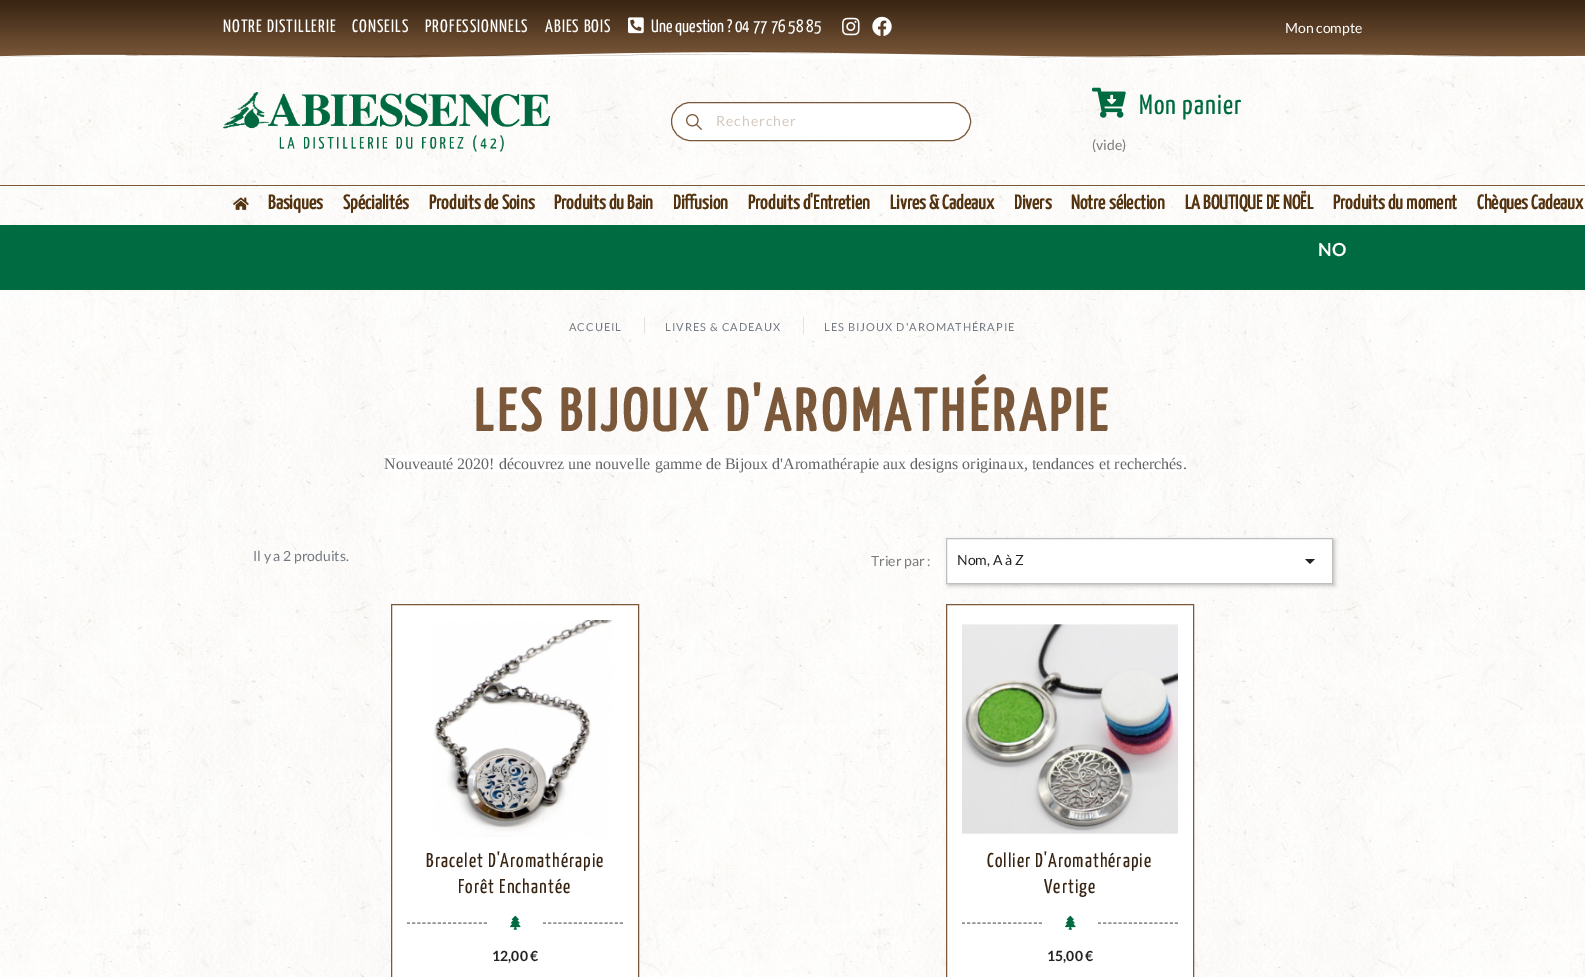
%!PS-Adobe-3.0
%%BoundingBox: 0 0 1585 977
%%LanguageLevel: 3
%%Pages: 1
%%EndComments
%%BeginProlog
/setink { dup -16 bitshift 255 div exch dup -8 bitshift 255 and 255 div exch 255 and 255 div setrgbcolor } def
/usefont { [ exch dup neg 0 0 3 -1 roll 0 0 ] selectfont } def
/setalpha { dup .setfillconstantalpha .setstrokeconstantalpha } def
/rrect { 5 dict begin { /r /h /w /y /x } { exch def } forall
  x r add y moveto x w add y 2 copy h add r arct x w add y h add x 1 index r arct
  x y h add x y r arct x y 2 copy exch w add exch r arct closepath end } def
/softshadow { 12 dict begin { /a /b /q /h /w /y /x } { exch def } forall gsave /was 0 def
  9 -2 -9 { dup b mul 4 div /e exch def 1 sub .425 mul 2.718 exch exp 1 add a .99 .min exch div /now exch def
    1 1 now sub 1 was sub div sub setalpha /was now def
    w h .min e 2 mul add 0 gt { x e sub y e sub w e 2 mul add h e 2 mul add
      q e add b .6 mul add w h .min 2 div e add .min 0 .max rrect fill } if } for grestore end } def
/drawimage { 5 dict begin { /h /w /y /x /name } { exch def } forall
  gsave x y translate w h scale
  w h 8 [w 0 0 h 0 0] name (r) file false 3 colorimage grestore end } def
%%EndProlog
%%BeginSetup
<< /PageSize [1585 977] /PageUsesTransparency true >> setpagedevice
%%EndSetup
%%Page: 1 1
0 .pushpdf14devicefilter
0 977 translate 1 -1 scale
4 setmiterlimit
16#FFFFFF setink
0 0 1585 977 rectfill
(img1.raw) 0 59 1585 918 drawimage
gsave 0 0 moveto 1585 0 lineto 1585 58 lineto 0 58 lineto closepath clip newpath
<< /ShadingType 2 /ColorSpace /DeviceRGB /Coords [793 0 793 58] /Extend [true true] /Function << /FunctionType 2 /Domain [0 1] /C0 [0.216 0.141 0.075] /C1 [0.482 0.345 0.224] /N 1 >> >> shfill grestore
/YanoneKaffeesatz-ExtraLight 18 usefont
223 32 moveto 1 0 (NOTRE DISTILLERIE) ashow
352 32 moveto 1 0 (CONSEILS) ashow
425 32 moveto 1 0 (PROFESSIONNELS) ashow
545 32 moveto 1 0 (ABIES BOIS) ashow
(img2.raw) 628 17 16 17 drawimage
651 32 moveto (Une question ? 04 77 76 58 85) show
(img3.raw) 842 17 18 19 drawimage
(img4.raw) 872 16 20 20 drawimage
/Lato-Regular 14 usefont
1285 33 moveto (Mon compte) show
(img5.raw) 0 51 1585 8 drawimage
(img6.raw) 223 92 327 60 drawimage
671.5 102.5 299 38 19 rrect gsave fill grestore
16#7B5839 setink
stroke
(img7.raw) 686 114 16 16 drawimage
16#D4C9BF setink
716 126 moveto 1 0 (Rechercher) ashow
(img8.raw) 1092 87 34 31 drawimage
/YanoneKaffeesatz-ExtraLight 28 usefont
16#006A40 setink
1139 114 moveto 1 0 (Mon panier) ashow
/Lato-Regular 14 usefont
16#7A7A7A setink
1092 150 moveto (\(vide\)) show
16#7B5839 setink
0 185 1585 1 rectfill
(img9.raw) 233 197 16 13 drawimage
/YanoneKaffeesatz-Bold 20 usefont
16#543310 setink
[
    [(Basiques) 268 209]
    [(Spécialités) 343 209]
    [(Produits de Soins) 429 209]
    [(Produits du Bain) 554 209]
    [(Diffusion) 673 209]
    [(Produits d'Entretien) 748 209]
    [(Livres & Cadeaux) 890 209]
    [(Divers) 1014 209]
    [(Notre sélection) 1071 209]
    [(LA BOUTIQUE DE NOËL) 1185 209]
    [(Produits du moment) 1333 209]
    [(Chèques Cadeaux) 1477 209]
] { aload pop moveto show } forall
16#006A40 setink
0 225 1585 65 rectfill
/Lato-Bold 18 usefont
16#FFFFFF setink
1318 256 moveto (NO) show
/Lato-Regular 11 usefont
16#727982 setink
569 331 moveto 1 0 (ACCUEIL) ashow
16#E4E3E2 setink
644 317 1 17 rectfill
16#727982 setink
665 331 moveto 1 0 (LIVRES & CADEAUX) ashow
0.1 setalpha
16#000000 setink
803 317 1 17 rectfill
1 setalpha
16#727982 setink
824 331 moveto 1 0 (LES BIJOUX D'AROMATHÉRAPIE) ashow
/YanoneKaffeesatz-Bold 60 usefont
16#7B5839 setink
474 431 moveto 4 0 (LES BIJOUX D'AROMATHÉRAPIE) ashow
16#FFFFFF setink
384 455 802 17 rectfill
/LiberationSerif-Regular 16 usefont
16#666666 setink
384 469 moveto (Nouveauté 2020! découvrez une nouvelle gamme de Bijoux d'Aromathérapie aux designs originaux, tendances et recherchés.) show
/Lato-Regular 14 usefont
16#727982 setink
253 561 moveto (Il y a 2 produits.) show
16#7A7A7A setink
871 566 moveto (Trier par :) show
16#000000 setink
948 540 387 46 0 2 0.2 softshadow
16#FFFFFF setink
946.5 538.5 moveto 1332.5 538.5 lineto 1332.5 583.5 lineto 946.5 583.5 lineto closepath gsave fill grestore
16#BFBFBF setink
stroke
16#232323 setink
957 565 moveto (Nom, A à Z) show
1305 559 moveto 1315 559 lineto 1310 564 lineto closepath fill
16#FFFFFF setink
391.5 604.5 moveto 638.5 604.5 lineto 638.5 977.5 lineto 391.5 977.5 lineto closepath gsave fill grestore
16#7B5839 setink
stroke
(img10.raw) 433 620 180 217 drawimage
/YanoneKaffeesatz-ExtraLight 20 usefont
16#372413 setink
426 867 moveto 1 0 (Bracelet D'Aromathérapie) ashow
458 893 moveto 1 0 (Forêt Enchantée) ashow
16#666666 setink
[3 2.13] 0 setdash
407 923 moveto 487 923 lineto stroke
(img11.raw) 510 915 11 15 drawimage
543 923 moveto 623 923 lineto stroke
/Lato-Bold 14 usefont
16#232323 setink
492 961 moveto (12,00 €) show
16#FFFFFF setink
946.5 604.5 moveto 1193.5 604.5 lineto 1193.5 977.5 lineto 946.5 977.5 lineto closepath gsave fill grestore
16#7B5839 setink
[] 0 setdash
stroke
(img12.raw) 962 624 216 210 drawimage
/YanoneKaffeesatz-ExtraLight 20 usefont
16#372413 setink
987 867 moveto 1 0 (Collier D'Aromathérapie) ashow
1044 893 moveto 1 0 (Vertige) ashow
16#666666 setink
[3 2.13] 0 setdash
962 923 moveto 1042 923 lineto stroke
(img11.raw) 1065 915 11 15 drawimage
1098 923 moveto 1178 923 lineto stroke
/Lato-Bold 14 usefont
16#232323 setink
1047 961 moveto (15,00 €) show
.poppdf14devicefilter showpage
%%EOF
